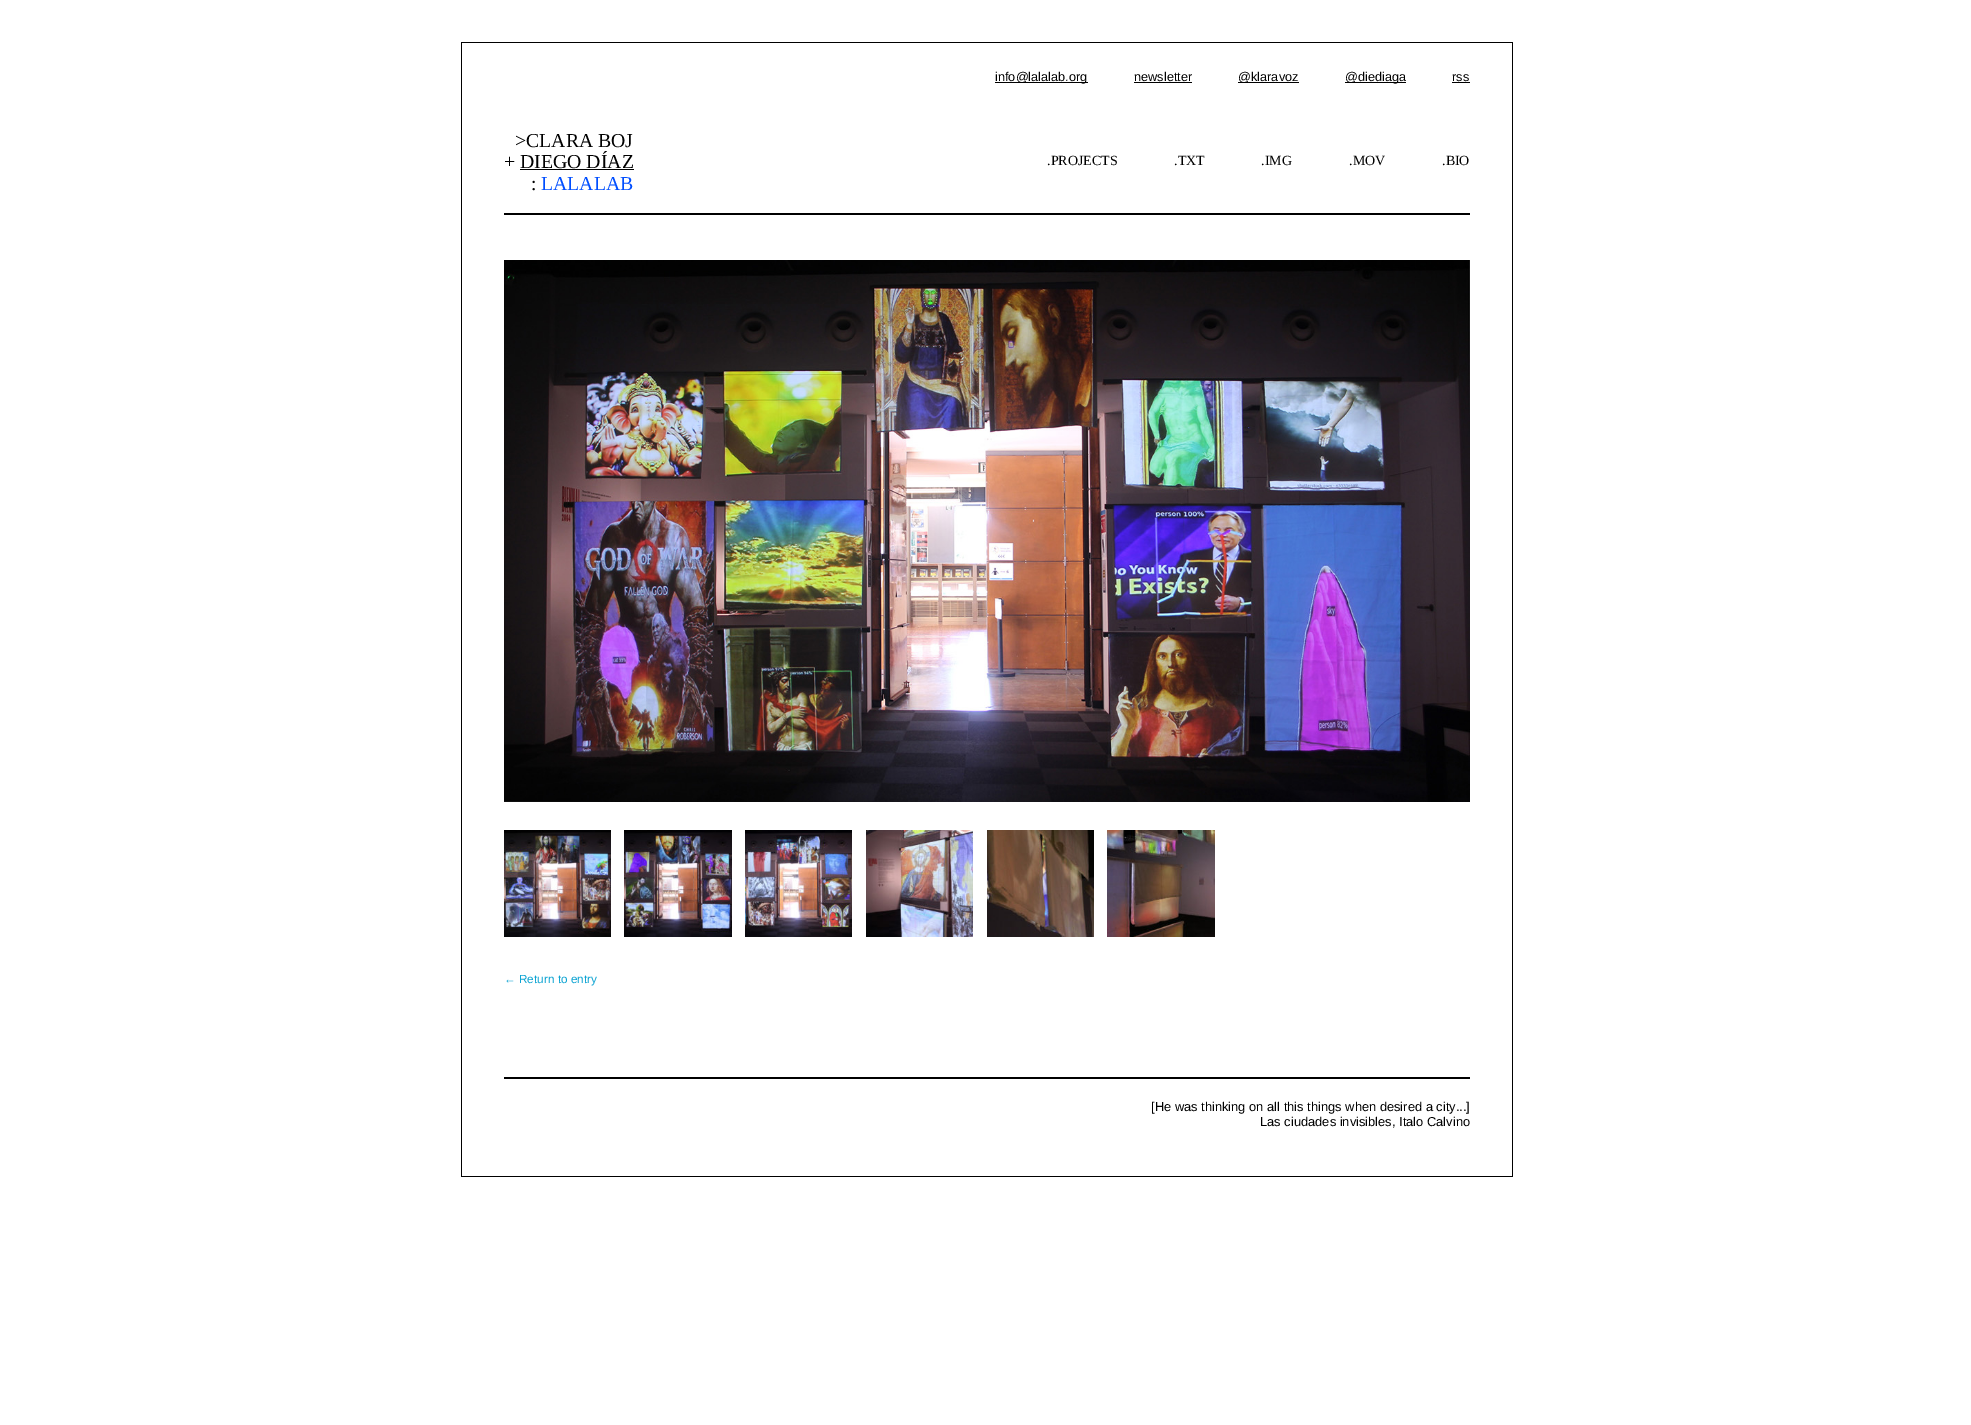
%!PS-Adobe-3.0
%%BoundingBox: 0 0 1971 1425
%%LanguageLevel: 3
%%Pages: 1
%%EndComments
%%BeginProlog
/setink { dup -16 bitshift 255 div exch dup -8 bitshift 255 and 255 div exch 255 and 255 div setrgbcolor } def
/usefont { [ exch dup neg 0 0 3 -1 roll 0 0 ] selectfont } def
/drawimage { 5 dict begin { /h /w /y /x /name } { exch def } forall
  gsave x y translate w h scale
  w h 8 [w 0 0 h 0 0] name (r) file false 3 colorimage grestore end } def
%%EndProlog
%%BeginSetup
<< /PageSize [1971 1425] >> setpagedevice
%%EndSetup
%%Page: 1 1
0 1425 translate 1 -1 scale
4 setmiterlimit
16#FFFFFF setink
0 0 1971 1425 rectfill
[
    [461 42 1052 1 16#000000]
    [1512 42 1 213 16#000000]
    [461 42 1 213 16#000000]
    [504 213 966 2 16#000000]
] { aload pop setink rectfill } forall
/LiberationSerif-Regular 19.75 usefont
515 147 moveto (>CLARA BOJ) show
504 168 moveto (+ DIEGO DÍAZ) show
520 169 114 1 rectfill
531 190 moveto (:) show
16#004EFF setink
541 190 moveto (LALALAB) show
16#000000 setink
995 82 93 1 rectfill
/LiberationSans-Regular 12.75 usefont
995 81 moveto (info@lalalab.org) show
1134 81 moveto (newsletter) show
1134 82 58 1 rectfill
1238 82 61 1 rectfill
1238 81 moveto (@klaravoz) show
1345 82 61 1 rectfill
1345 81 moveto (@diediaga) show
1452 81 moveto (rss) show
1452 82 18 1 rectfill
/LiberationSerif-Regular 14 usefont
[
    [(.PROJECTS) 1047 165]
    [(.TXT) 1174 165]
    [(.IMG) 1261 165]
    [(.MOV) 1349 165]
    [(.BIO) 1442 165]
] { aload pop moveto show } forall
(img1.raw) 504 260 966 542 drawimage
(img2.raw) 504 830 107 107 drawimage
(img3.raw) 624 830 108 107 drawimage
(img4.raw) 745 830 107 107 drawimage
(img5.raw) 866 830 107 107 drawimage
(img6.raw) 987 830 107 107 drawimage
(img7.raw) 1107 830 108 107 drawimage
/LiberationSans-Regular 11.75 usefont
16#0DA4D3 setink
504 983 moveto (← Return to entry) show
[
    [1512 255 1 922 16#000000]
    [461 1176 1052 1 16#000000]
    [461 255 1 922 16#000000]
    [504 1077 966 2 16#000000]
] { aload pop setink rectfill } forall
/LiberationSans-Regular 12.9 usefont
1151 1111 moveto ([He was thinking on all this things when desired a city...]) show
1260 1126 moveto (Las ciudades invisibles, Italo Calvino) show
showpage
%%EOF
